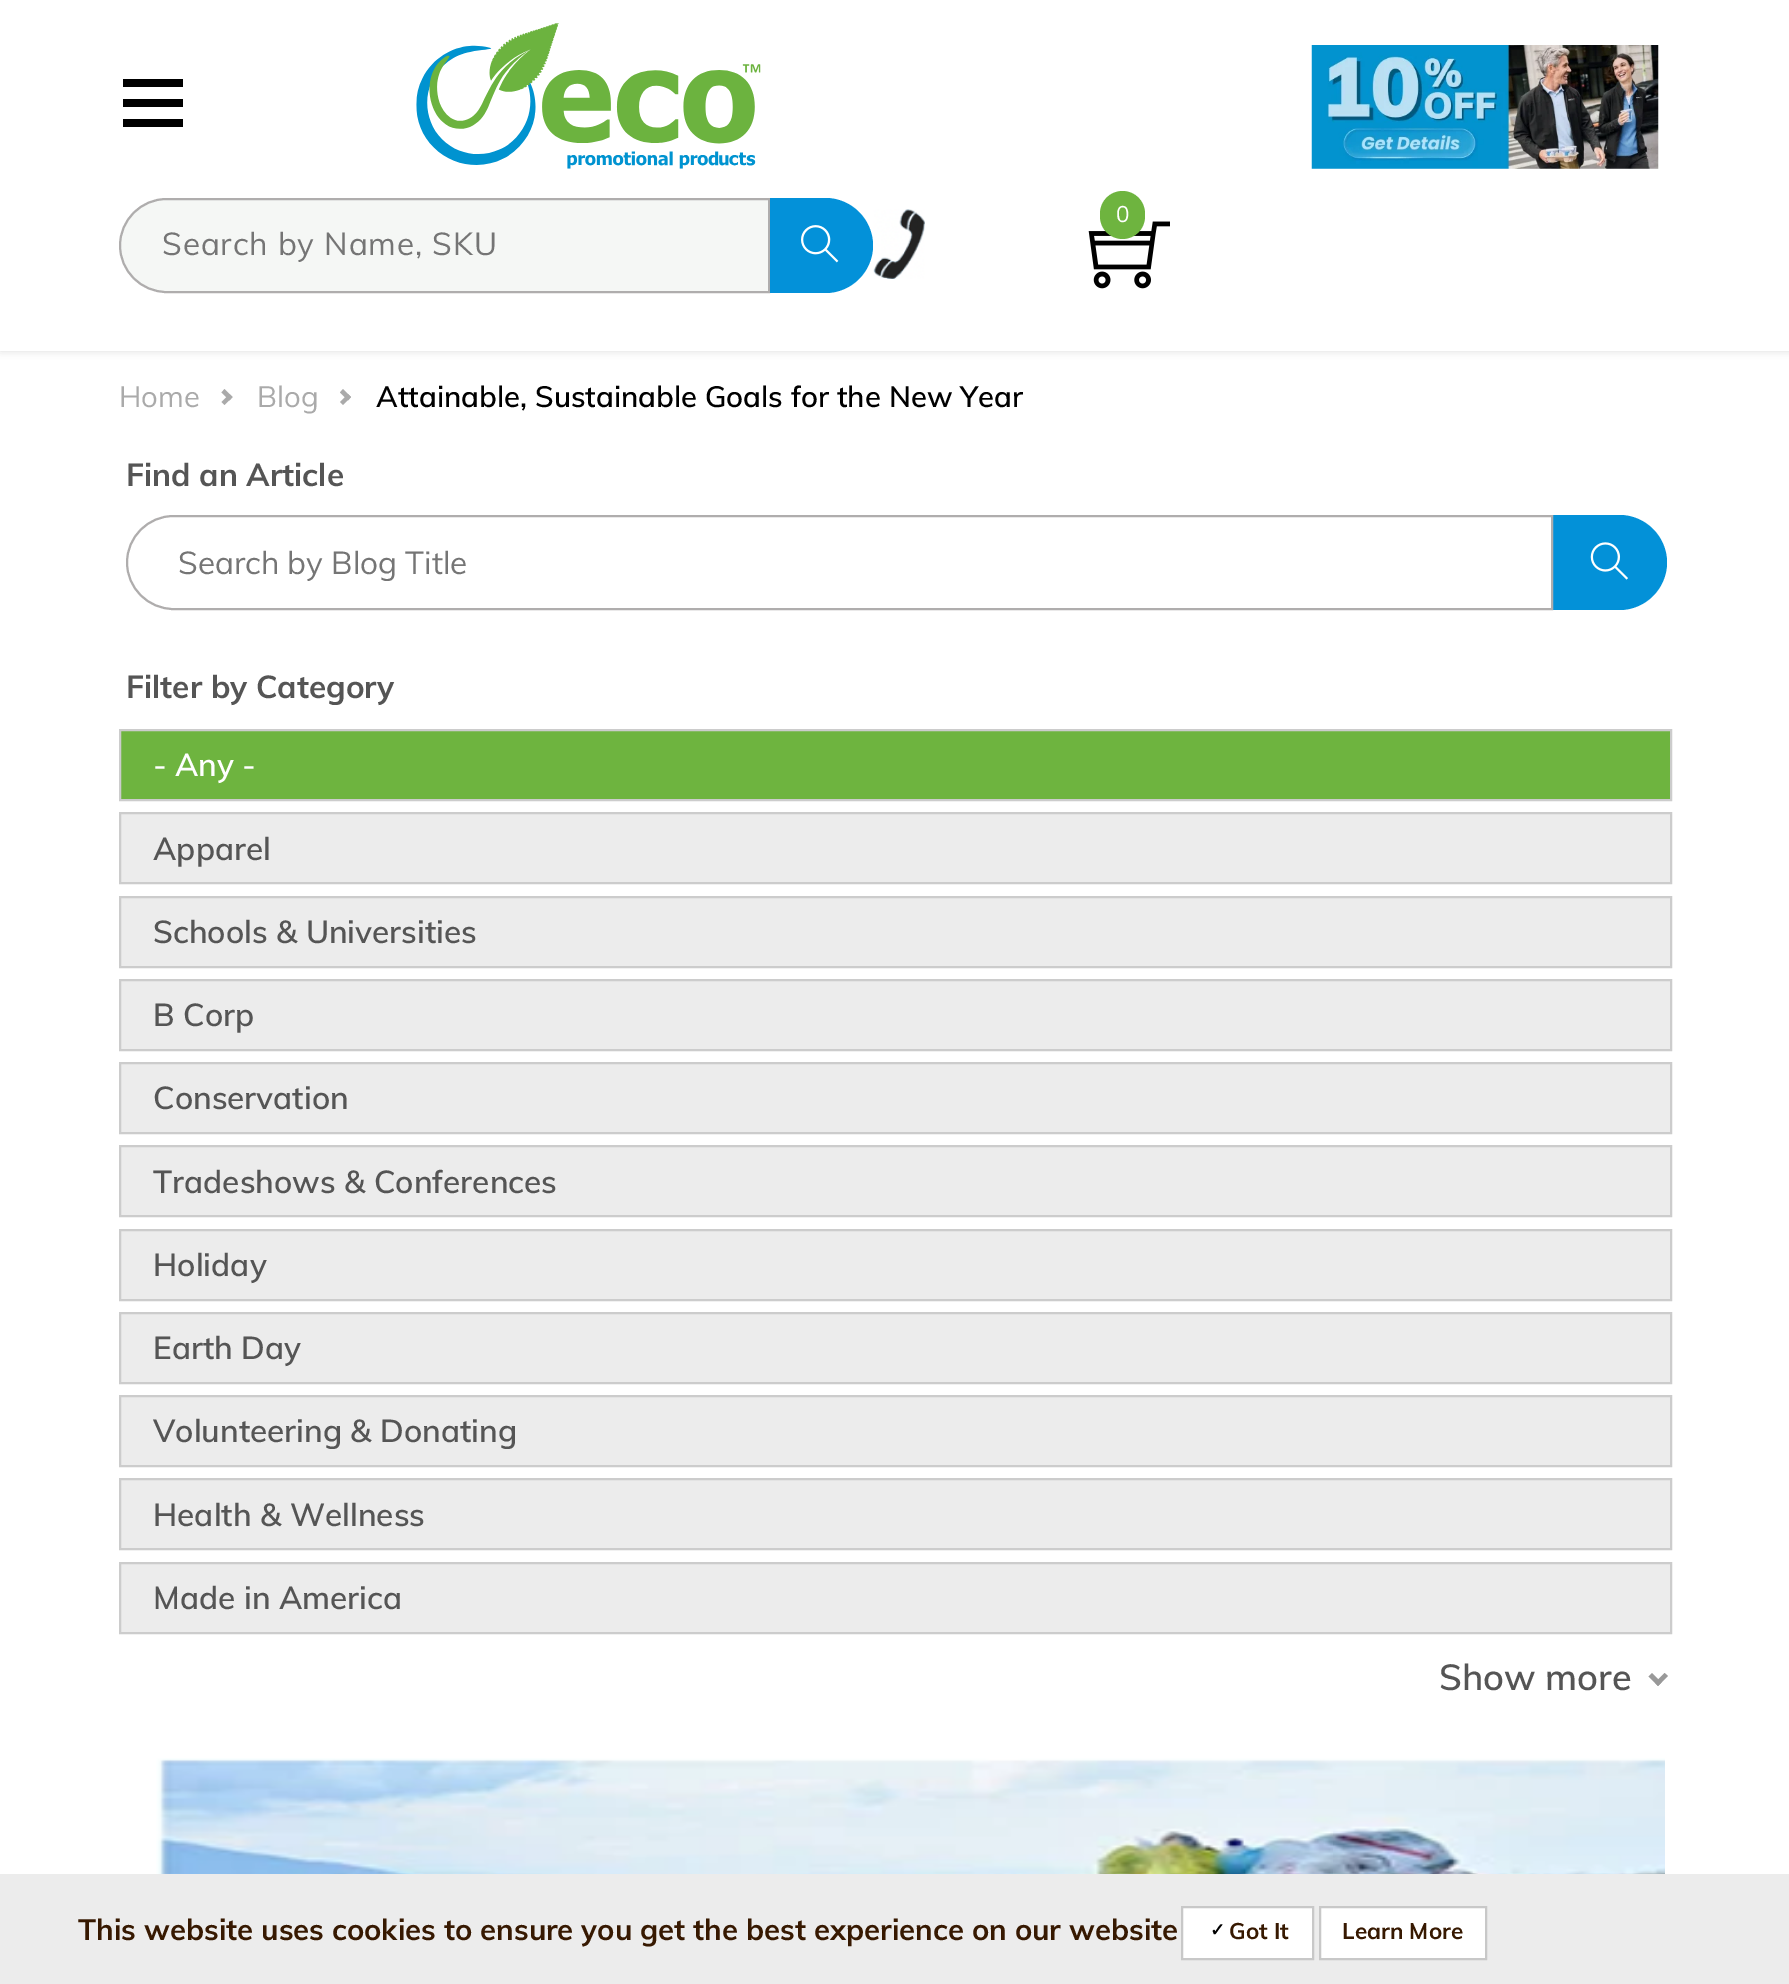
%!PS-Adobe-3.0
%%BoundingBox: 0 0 1789 1984
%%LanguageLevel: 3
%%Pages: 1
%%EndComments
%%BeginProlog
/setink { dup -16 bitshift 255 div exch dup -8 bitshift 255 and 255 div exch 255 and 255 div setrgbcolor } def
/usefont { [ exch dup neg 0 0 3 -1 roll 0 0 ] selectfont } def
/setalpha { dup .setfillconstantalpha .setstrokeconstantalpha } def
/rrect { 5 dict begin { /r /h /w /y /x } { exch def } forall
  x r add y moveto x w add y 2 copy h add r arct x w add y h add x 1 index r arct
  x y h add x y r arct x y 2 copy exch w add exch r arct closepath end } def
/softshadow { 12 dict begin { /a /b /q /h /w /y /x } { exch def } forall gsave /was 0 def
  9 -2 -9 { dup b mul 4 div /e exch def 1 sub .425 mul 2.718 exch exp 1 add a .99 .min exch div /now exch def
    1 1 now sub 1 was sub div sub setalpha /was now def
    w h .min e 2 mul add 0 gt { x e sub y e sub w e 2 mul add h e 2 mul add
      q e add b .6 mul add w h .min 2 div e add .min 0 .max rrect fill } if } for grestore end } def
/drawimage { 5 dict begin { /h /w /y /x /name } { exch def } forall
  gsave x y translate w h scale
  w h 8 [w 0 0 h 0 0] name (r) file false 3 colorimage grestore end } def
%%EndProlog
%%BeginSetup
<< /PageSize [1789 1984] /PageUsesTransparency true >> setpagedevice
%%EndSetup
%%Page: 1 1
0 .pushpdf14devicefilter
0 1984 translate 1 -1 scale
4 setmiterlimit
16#FFFFFF setink
0 0 1789 1984 rectfill
gsave
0 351 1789 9 rectclip
16#DDDDDD setink
0 0 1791 351 0 4.5 1 softshadow
grestore
16#000000 setink
183 79 moveto 183 87 lineto 123 87 lineto 123 79 lineto closepath 123 107 moveto 183 107 lineto 183 99 lineto 123 99 lineto closepath 123 127 moveto 183 127 lineto 183 119 lineto 123 119 lineto closepath fill
(img1.raw) 416 23 345 146 drawimage
(img2.raw) 1311 45 348 124 drawimage
(img3.raw) 873 209 52 70 drawimage
(img4.raw) 1088 221 82 68 drawimage
16#6EB43F setink
1100 191 45 48 22.5 rrect fill
/Muli-Regular 22.5 usefont
16#FFFFFF setink
1116 222 moveto (0) show
16#F5F7F5 setink
166.5 199 moveto 769 199 lineto 769 292 lineto 166.5 292 lineto 141 292 120 271 120 245.5 curveto 120 220 141 199 166.5 199 curveto closepath gsave fill grestore
16#AFADAD setink
2 setlinewidth
stroke
/Muli-Regular 31.5 usefont
16#757575 setink
162 255 moveto 0.9 0 (Search by Name, SKU) ashow
16#0391D9 setink
770 198 moveto 825.5 198 lineto 851.5 198 873 219.5 873 245.5 curveto 873 271.5 851.5 293 825.5 293 curveto 770 293 lineto closepath fill
(img5.raw) 801 225 38 38 drawimage
/Muli-Regular 29.25 usefont
16#AAAAAA setink
119 407 moveto (Home) show
221.5 392.5 moveto 224.5 389 lineto 232.5 397 lineto 229.5 400.5 lineto closepath fill
221.5 402 moveto 229.5 394 lineto 232.5 397 lineto 224.5 405 lineto closepath fill
257 407 moveto (Blog) show
340 392.5 moveto 343 389 lineto 351 397 lineto 348 400.5 lineto closepath fill
340 402 moveto 348 394 lineto 351 397 lineto 343 405 lineto closepath fill
/Muli-SemiBold 29.25 usefont
16#000000 setink
376 407 moveto (Attainable, Sustainable Goals for the New Year) show
/Muli-Bold 31.5 usefont
16#555555 setink
126 486 moveto (Find an Article) show
16#0391D8 setink
1546 515 moveto 1619.5 515 lineto 1645.5 515 1667 536.5 1667 562.5 curveto 1667 588.5 1645.5 610 1619.5 610 curveto 1546 610 lineto closepath fill
16#FFFFFF setink
173.5 516 moveto 1552 516 lineto 1552 609 lineto 173.5 609 lineto 148 609 127 588 127 562.5 curveto 127 537 148 516 173.5 516 curveto closepath gsave fill grestore
16#AFADAD setink
stroke
/Muli-Regular 31.5 usefont
16#757575 setink
178 574 moveto (Search by Blog Title) show
(img6.raw) 1590 542 38 38 drawimage
/Muli-Bold 31.5 usefont
16#555555 setink
126 698 moveto (Filter by Category) show
16#6EB43F setink
120 730 moveto 1671 730 lineto 1671 800 lineto 120 800 lineto closepath gsave fill grestore
16#CCCCCC setink
stroke
/Muli-SemiBold 31.5 usefont
16#FFFFFF setink
153 776 moveto (- Any -) show
16#ECECEC setink
120 813 moveto 1671 813 lineto 1671 883 lineto 120 883 lineto closepath gsave fill grestore
16#CCCCCC setink
stroke
16#555555 setink
153 860 moveto (Apparel) show
16#ECECEC setink
120 897 moveto 1671 897 lineto 1671 967 lineto 120 967 lineto closepath gsave fill grestore
16#CCCCCC setink
stroke
16#555555 setink
153 943 moveto (Schools & Universities) show
16#ECECEC setink
120 980 moveto 1671 980 lineto 1671 1050 lineto 120 1050 lineto closepath gsave fill grestore
16#CCCCCC setink
stroke
16#555555 setink
153 1026 moveto (B Corp) show
16#ECECEC setink
120 1063 moveto 1671 1063 lineto 1671 1133 lineto 120 1133 lineto closepath gsave fill grestore
16#CCCCCC setink
stroke
16#555555 setink
153 1109 moveto (Conservation) show
16#ECECEC setink
120 1146 moveto 1671 1146 lineto 1671 1216 lineto 120 1216 lineto closepath gsave fill grestore
16#CCCCCC setink
stroke
16#555555 setink
153 1193 moveto (Tradeshows & Conferences) show
16#ECECEC setink
120 1230 moveto 1671 1230 lineto 1671 1300 lineto 120 1300 lineto closepath gsave fill grestore
16#CCCCCC setink
stroke
16#555555 setink
153 1276 moveto (Holiday) show
16#ECECEC setink
120 1313 moveto 1671 1313 lineto 1671 1383 lineto 120 1383 lineto closepath gsave fill grestore
16#CCCCCC setink
stroke
16#555555 setink
153 1359 moveto (Earth Day) show
16#ECECEC setink
120 1396 moveto 1671 1396 lineto 1671 1466 lineto 120 1466 lineto closepath gsave fill grestore
16#CCCCCC setink
stroke
16#555555 setink
153 1442 moveto (Volunteering & Donating) show
16#ECECEC setink
120 1479 moveto 1671 1479 lineto 1671 1549 lineto 120 1549 lineto closepath gsave fill grestore
16#CCCCCC setink
stroke
16#555555 setink
153 1526 moveto (Health & Wellness) show
16#ECECEC setink
120 1563 moveto 1671 1563 lineto 1671 1633 lineto 120 1633 lineto closepath gsave fill grestore
16#CCCCCC setink
stroke
16#555555 setink
153 1609 moveto (Made in America) show
/Muli-SemiBold 36 usefont
1439 1690 moveto (Show more) show
16#999999 setink
1664.5 1673 moveto 1668 1676 lineto 1658 1686 lineto 1655 1682.5 lineto closepath fill
1652 1673 moveto 1661.5 1682.5 lineto 1658 1686 lineto 1648.5 1676.5 lineto closepath fill
(img7.raw) 156 1758 1509 116 drawimage
16#ECECEC setink
0 1874 1789 110 rectfill
/Muli-Bold 29.25 usefont
16#371901 setink
78 1940 moveto (This website uses cookies to ensure you get the best experience on our website) show
16#FFFFFF setink
1182 1907 moveto 1313 1907 lineto 1313 1959 lineto 1182 1959 lineto closepath gsave fill grestore
16#C8C8C8 setink
stroke
/DejaVuSans-Bold 18 usefont
16#000000 setink
1210 1936 moveto (✓) show
/Muli-Bold 22.5 usefont
16#371901 setink
1229 1939 moveto (Got It) show
16#FFFFFF setink
1320 1907 moveto 1486 1907 lineto 1486 1959 lineto 1320 1959 lineto closepath gsave fill grestore
16#C8C8C8 setink
stroke
16#371901 setink
1342 1939 moveto (Learn More) show
.poppdf14devicefilter showpage
%%EOF
